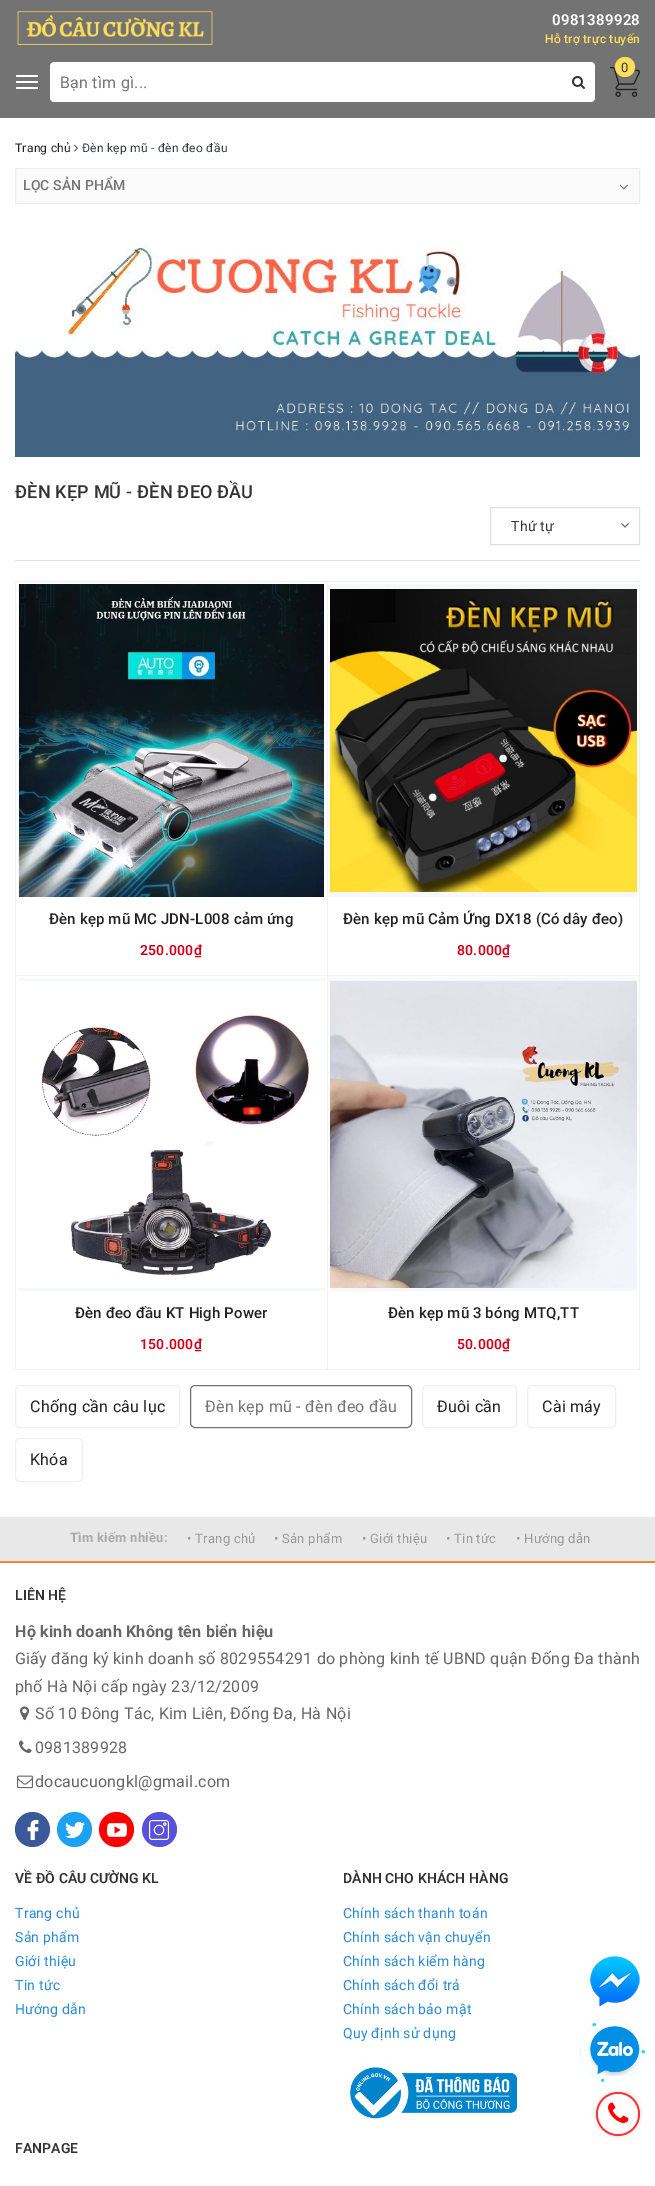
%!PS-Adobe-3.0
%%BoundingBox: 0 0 655 2186
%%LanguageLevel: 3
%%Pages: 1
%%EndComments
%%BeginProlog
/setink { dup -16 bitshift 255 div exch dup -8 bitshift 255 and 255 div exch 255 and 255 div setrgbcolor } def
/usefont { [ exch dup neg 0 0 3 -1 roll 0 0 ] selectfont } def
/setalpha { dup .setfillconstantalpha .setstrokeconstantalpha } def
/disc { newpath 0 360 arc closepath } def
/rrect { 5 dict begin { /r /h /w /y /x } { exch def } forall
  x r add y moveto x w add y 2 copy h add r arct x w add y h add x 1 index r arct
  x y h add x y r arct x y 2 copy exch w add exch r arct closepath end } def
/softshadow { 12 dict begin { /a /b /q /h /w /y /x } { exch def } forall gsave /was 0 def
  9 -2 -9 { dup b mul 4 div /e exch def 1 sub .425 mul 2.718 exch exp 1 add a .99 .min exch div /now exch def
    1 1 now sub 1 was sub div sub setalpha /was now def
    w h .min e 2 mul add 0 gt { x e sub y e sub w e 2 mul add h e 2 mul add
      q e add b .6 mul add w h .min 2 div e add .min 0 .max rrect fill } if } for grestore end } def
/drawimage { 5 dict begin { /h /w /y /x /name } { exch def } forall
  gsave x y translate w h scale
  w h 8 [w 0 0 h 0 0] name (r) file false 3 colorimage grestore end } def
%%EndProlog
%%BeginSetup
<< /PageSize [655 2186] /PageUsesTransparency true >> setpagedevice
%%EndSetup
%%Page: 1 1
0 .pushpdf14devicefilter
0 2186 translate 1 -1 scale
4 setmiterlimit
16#FFFFFF setink
0 0 655 2186 rectfill
16#737373 setink
0 0 655 118 rectfill
(img1.raw) 17 11 196 34 drawimage
/Roboto-SemiBold 15 usefont
16#FFFFFF setink
552 25 moveto 0.25 0 (0981389928) ashow
/Roboto-Medium 12 usefont
16#FFDE59 setink
545 43 moveto 0.25 0 (Hỗ trợ trực tuyến) ashow
(img2.raw) 610 67 30 30 drawimage
625 67 10 disc fill
/Roboto-Regular 13 usefont
16#333333 setink
621 72 moveto 0.25 0 (0) ashow
16#FFFFFF setink
16 75 22 2 1 rrect fill
16 81 22 2 1 rrect fill
16 87 22 2 1 rrect fill
54 62 moveto 563 62 lineto 563 102 lineto 54 102 lineto 52 102 50 100 50 98 curveto 50 66 lineto 50 64 52 62 54 62 curveto closepath fill
/Roboto-Regular 16 usefont
16#757575 setink
60 88 moveto 0.25 0 (Bạn tìm gì...) ashow
16#FFFFFF setink
562 62 moveto 591 62 lineto 593 62 595 64 595 66 curveto 595 98 lineto 595 100 593 102 591 102 curveto 562 102 lineto closepath fill
(img3.raw) 572 76 13 13 drawimage
/Roboto-Regular 12 usefont
16#222222 setink
15 152 moveto 0.25 0 (Trang chủ) ashow
(img4.raw) 74 144 4 8 drawimage
16#323C3F setink
82 152 moveto 0.25 0 (Đèn kẹp mũ - đèn đeo đầu) ashow
16#FBFBFB setink
15.5 168.5 moveto 639.5 168.5 lineto 639.5 203.5 lineto 15.5 203.5 lineto closepath gsave fill grestore
16#EEEEEE setink
stroke
/Roboto-Medium 14 usefont
16#757575 setink
23 190 moveto 0.1 0 (LỌC SẢN PHẨM) ashow
(img5.raw) 619 184 9 6 drawimage
(img6.raw) 15 243 625 214 drawimage
/Roboto-Medium 18 usefont
16#333333 setink
15 498 moveto 0.2 0 (ĐÈN KẸP MŨ - ĐÈN ĐEO ĐẦU) ashow
16#E1E1E1 setink
15 560 625 1 rectfill
(img7.raw) 621 523 8 5 drawimage
490.5 507.5 149 37 rectstroke
/Roboto-Regular 14 usefont
16#333333 setink
511 531 moveto 0.25 0 (Thứ tự) ashow
[
    [15 581 625 1 16#F3F3F3]
    [15 581 1 789 16#F3F3F3]
    [327 582 1 788 16#F3F3F3]
    [16 975 312 1 16#F3F3F3]
    [18 584 307 313 16#F7F8F9]
] { aload pop setink rectfill } forall
(img8.raw) 19 584 305 313 drawimage
/Roboto-Medium 15 usefont
16#222222 setink
49 924 moveto 0.15 0 (Đèn kẹp mũ MC JDN-L008 cảm ứng) ashow
/Roboto-SemiBold 14 usefont
16#D0021B setink
140 955 moveto 0.25 0 (250.000₫) ashow
[
    [639 582 1 788 16#F3F3F3]
    [328 975 312 1 16#F3F3F3]
    [330 584 307 313 16#F7F8F9]
] { aload pop setink rectfill } forall
(img9.raw) 330 589 307 303 drawimage
/Roboto-Medium 15 usefont
16#222222 setink
343 924 moveto 0.15 0 (Đèn kẹp mũ Cảm Ứng DX18 \(Có dây đeo\)) ashow
/Roboto-SemiBold 14 usefont
16#D0021B setink
457 955 moveto 0.25 0 (80.000₫) ashow
16#F3F3F3 setink
16 1369 624 1 rectfill
16#F7F8F9 setink
18 978 307 313 rectfill
(img10.raw) 18 981 307 307 drawimage
/Roboto-Medium 15 usefont
16#222222 setink
75 1318 moveto 0.15 0 (Đèn đeo đầu KT High Power) ashow
/Roboto-SemiBold 14 usefont
16#D0021B setink
140 1349 moveto 0.25 0 (150.000₫) ashow
16#F7F8F9 setink
330 978 307 313 rectfill
(img11.raw) 330 981 307 307 drawimage
/Roboto-Medium 15 usefont
16#222222 setink
388 1318 moveto 0.15 0 (Đèn kẹp mũ 3 bóng MTQ,TT) ashow
/Roboto-SemiBold 14 usefont
16#D0021B setink
457 1349 moveto 0.25 0 (50.000₫) ashow
16#EFEFEF setink
15.5 1385.5 164 42 4.5 rrect stroke
/Roboto-Regular 16 usefont
16#222222 setink
30 1412 moveto 0.25 0 (Chống cần câu lục) ashow
16#737373 setink
190.5 1385.5 221 42 4.5 rrect stroke
16#757575 setink
205 1412 moveto 0.25 0 (Đèn kẹp mũ - đèn đeo đầu) ashow
16#EFEFEF setink
422.5 1385.5 94 42 4.5 rrect stroke
16#222222 setink
437 1412 moveto 0.25 0 (Đuôi cần) ashow
16#EFEFEF setink
527.5 1385.5 88 42 4.5 rrect stroke
16#222222 setink
542 1412 moveto 0.25 0 (Cài máy) ashow
16#EFEFEF setink
15.5 1438.5 67 43 4.5 rrect stroke
16#222222 setink
30 1465 moveto 0.25 0 (Khóa) ashow
16#E8E8E8 setink
0 1517 655 44 rectfill
/Roboto-Bold 13 usefont
16#A9A9A9 setink
70 1542 moveto 0.25 0 (Tìm kiếm nhiều:) ashow
/Roboto-Regular 13 usefont
16#999999 setink
187 1543 moveto 0.25 0 (• Trang chủ) ashow
274 1543 moveto 0.25 0 (• Sản phẩm) ashow
362 1543 moveto 0.25 0 (• Giới thiệu) ashow
446 1543 moveto 0.25 0 (• Tin tức) ashow
516 1543 moveto 0.25 0 (• Hướng dẫn) ashow
16#EF8A32 setink
0 1561 655 2 rectfill
/Roboto-SemiBold 14 usefont
16#333333 setink
15 1600 moveto 0.1 0 (LIÊN HỆ) ashow
/Roboto-Bold 16 usefont
16#666666 setink
15 1637 moveto 0.25 0 (Hộ kinh doanh Không tên biển hiệu) ashow
/Roboto-Regular 16 usefont
15 1664 moveto 0.25 0 (Giấy đăng ký kinh doanh số 8029554291 do phòng kinh tế UBND quận Đống Đa thành) ashow
15 1692 moveto 0.25 0 (phố Hà Nội cấp ngày 23/12/2009) ashow
(img12.raw) 20 1706 10 15 drawimage
35 1719 moveto 0.25 0 (Số 10 Đông Tác, Kim Liên, Đống Đa, Hà Nội) ashow
(img13.raw) 19 1740 13 13 drawimage
35 1753 moveto 0.25 0 (0981389928) ashow
(img14.raw) 17 1775 16 14 drawimage
35 1787 moveto 0.25 0 (docaucuongkl@gmail.com) ashow
16#3B5998 setink
32.5 1829.5 17.5 disc fill
(img15.raw) 27 1820 12 20 drawimage
16#1DA1F2 setink
74.5 1829.5 17.5 disc fill
(img16.raw) 65 1821 20 18 drawimage
16#FF0000 setink
116.5 1829.5 17.5 disc fill
(img17.raw) 107 1823 20 14 drawimage
16#5851DB setink
159.5 1829.5 17.5 disc fill
(img18.raw) 149 1820 20 20 drawimage
/Roboto-SemiBold 14 usefont
16#333333 setink
15 1883 moveto 0.1 0 (VỀ ĐỒ CÂU CƯỜNG KL) ashow
/Roboto-Regular 14 usefont
16#288AD6 setink
15 1918 moveto 0.25 0 (Trang chủ) ashow
15 1942 moveto 0.25 0 (Sản phẩm) ashow
15 1966 moveto 0.25 0 (Giới thiệu) ashow
15 1990 moveto 0.25 0 (Tin tức) ashow
15 2014 moveto 0.25 0 (Hướng dẫn) ashow
/Roboto-SemiBold 14 usefont
16#333333 setink
343 1883 moveto 0.1 0 (DÀNH CHO KHÁCH HÀNG) ashow
/Roboto-Regular 14 usefont
16#288AD6 setink
343 1918 moveto 0.25 0 (Chính sách thanh toán) ashow
343 1942 moveto 0.25 0 (Chính sách vận chuyển) ashow
343 1966 moveto 0.25 0 (Chính sách kiểm hàng) ashow
343 1990 moveto 0.25 0 (Chính sách đổi trả) ashow
343 2014 moveto 0.25 0 (Chính sách bảo mật) ashow
343 2038 moveto 0.25 0 (Quy định sử dụng) ashow
(img19.raw) 343 2060 174 66 drawimage
/Roboto-SemiBold 14 usefont
16#333333 setink
15 2153 moveto 0.1 0 (FANPAGE) ashow
(img20.raw) 590 1956 50 50 drawimage
(img21.raw) 580 2019 65 63 drawimage
(img22.raw) 590 2026 50 50 drawimage
gsave
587 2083 moveto 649 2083 lineto 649 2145 lineto 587 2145 lineto closepath 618 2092 moveto 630 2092 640 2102 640 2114 curveto 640 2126 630 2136 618 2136 curveto 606 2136 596 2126 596 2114 curveto 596 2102 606 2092 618 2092 curveto closepath eoclip newpath
16#DDDDDD setink
596 2092 44 44 22 2.5 1 softshadow
grestore
0.8 setalpha
16#FE0000 setink
618 2114 22 disc fill
1 setalpha
16#FFFFFF setink
618 2114 20 disc fill
(img23.raw) 608 2102 21 21 drawimage
.poppdf14devicefilter showpage
%%EOF
